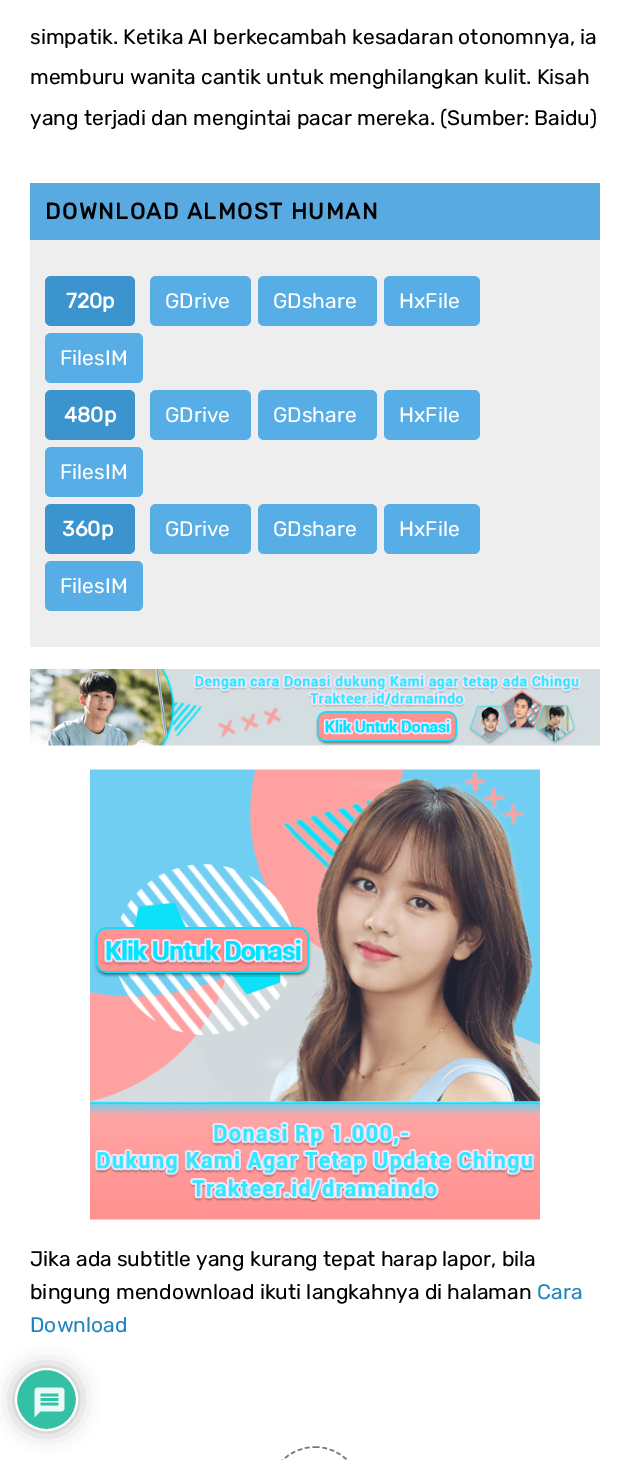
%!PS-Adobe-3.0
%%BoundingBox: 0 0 629 1460
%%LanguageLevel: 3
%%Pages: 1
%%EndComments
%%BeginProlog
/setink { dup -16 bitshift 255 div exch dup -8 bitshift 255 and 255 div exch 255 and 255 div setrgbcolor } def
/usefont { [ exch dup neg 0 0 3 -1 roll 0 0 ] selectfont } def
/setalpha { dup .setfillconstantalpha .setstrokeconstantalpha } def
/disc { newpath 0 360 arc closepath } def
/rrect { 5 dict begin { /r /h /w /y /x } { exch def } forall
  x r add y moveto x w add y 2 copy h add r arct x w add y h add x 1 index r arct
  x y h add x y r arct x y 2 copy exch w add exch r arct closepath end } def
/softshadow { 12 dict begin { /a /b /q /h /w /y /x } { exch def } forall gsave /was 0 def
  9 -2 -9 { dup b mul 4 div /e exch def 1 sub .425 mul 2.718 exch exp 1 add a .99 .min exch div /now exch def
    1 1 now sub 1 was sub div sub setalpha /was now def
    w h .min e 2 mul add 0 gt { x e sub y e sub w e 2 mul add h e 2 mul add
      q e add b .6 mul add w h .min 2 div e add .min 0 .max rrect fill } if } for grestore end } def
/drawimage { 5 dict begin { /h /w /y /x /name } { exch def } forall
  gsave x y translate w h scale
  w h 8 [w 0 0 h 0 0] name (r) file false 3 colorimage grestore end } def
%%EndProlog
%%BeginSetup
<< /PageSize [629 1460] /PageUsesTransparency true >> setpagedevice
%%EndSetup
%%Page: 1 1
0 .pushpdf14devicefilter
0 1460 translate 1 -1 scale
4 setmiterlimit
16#FFFFFF setink
0 0 629 1460 rectfill
/Rubik-Regular 21 usefont
16#000000 setink
[
    [(simpatik. Ketika AI berkecambah kesadaran otonomnya, ia) 30 44]
    [(memburu wanita cantik untuk menghilangkan kulit. Kisah) 30 84]
    [(yang terjadi dan mengintai pacar mereka. \(Sumber: Baidu\)) 30 125]
] { aload pop moveto show } forall
16#59AAE0 setink
30 183 570 57 rectfill
/Rubik-Bold 22.5 usefont
16#000000 setink
45 219 moveto 1.5 0 (DOWNLOAD ALMOST HUMAN) ashow
16#EEEEEE setink
30 240 570 407 rectfill
16#3C94CF setink
45 276 90 50 6 rrect fill
/Rubik-Bold 21 usefont
16#FFFFFF setink
66 308 moveto (720p) show
16#57AEE7 setink
150 276 101 50 6 rrect fill
/Rubik-Regular 21 usefont
16#FFFFFF setink
165 308 moveto (GDrive) show
16#57AEE7 setink
258 276 119 50 6 rrect fill
16#FFFFFF setink
273 308 moveto (GDshare) show
16#57AEE7 setink
384 276 96 50 6 rrect fill
16#FFFFFF setink
399 308 moveto (HxFile) show
16#57AEE7 setink
45 333 98 50 6 rrect fill
16#FFFFFF setink
60 365 moveto (FilesIM) show
16#3C94CF setink
45 390 90 50 6 rrect fill
/Rubik-Bold 21 usefont
16#FFFFFF setink
64 422 moveto (480p) show
16#57AEE7 setink
150 390 101 50 6 rrect fill
/Rubik-Regular 21 usefont
16#FFFFFF setink
165 422 moveto (GDrive) show
16#57AEE7 setink
258 390 119 50 6 rrect fill
16#FFFFFF setink
273 422 moveto (GDshare) show
16#57AEE7 setink
384 390 96 50 6 rrect fill
16#FFFFFF setink
399 422 moveto (HxFile) show
16#57AEE7 setink
45 447 98 50 6 rrect fill
16#FFFFFF setink
60 479 moveto (FilesIM) show
16#3C94CF setink
45 504 90 50 6 rrect fill
/Rubik-Bold 21 usefont
16#FFFFFF setink
62 536 moveto (360p) show
16#57AEE7 setink
150 504 101 50 6 rrect fill
/Rubik-Regular 21 usefont
16#FFFFFF setink
165 536 moveto (GDrive) show
16#57AEE7 setink
258 504 119 50 6 rrect fill
16#FFFFFF setink
273 536 moveto (GDshare) show
16#57AEE7 setink
384 504 96 50 6 rrect fill
16#FFFFFF setink
399 536 moveto (HxFile) show
16#57AEE7 setink
45 561 98 50 6 rrect fill
16#FFFFFF setink
60 593 moveto (FilesIM) show
(img1.raw) 30 669 570 77 drawimage
(img2.raw) 90 769 450 451 drawimage
16#000000 setink
30 1266 moveto (Jika ada subtitle yang kurang tepat harap lapor, bila) show
30 1299 moveto (bingung mendownload ikuti langkahnya di halaman) show
16#2086C2 setink
537 1299 moveto (Cara) show
30 1332 moveto (Download) show
16#777777 setink
1.5 setlinewidth
[4.5 3] 0 setdash
315 1447 moveto 340.5 1447 361 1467 361 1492.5 curveto 361 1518 340.5 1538 315 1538 curveto 289.5 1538 269 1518 269 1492.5 curveto 269 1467 289.5 1447 315 1447 curveto closepath stroke
16#B3B3B3 setink
15 1368 63 63 31.5 11 1 softshadow
16#34C0A4 setink
46.5 1399.5 30.5 disc gsave fill grestore
16#FFFFFF setink
2 setlinewidth
[] 0 setdash
stroke
(img3.raw) 34 1387 31 31 drawimage
.poppdf14devicefilter showpage
%%EOF
